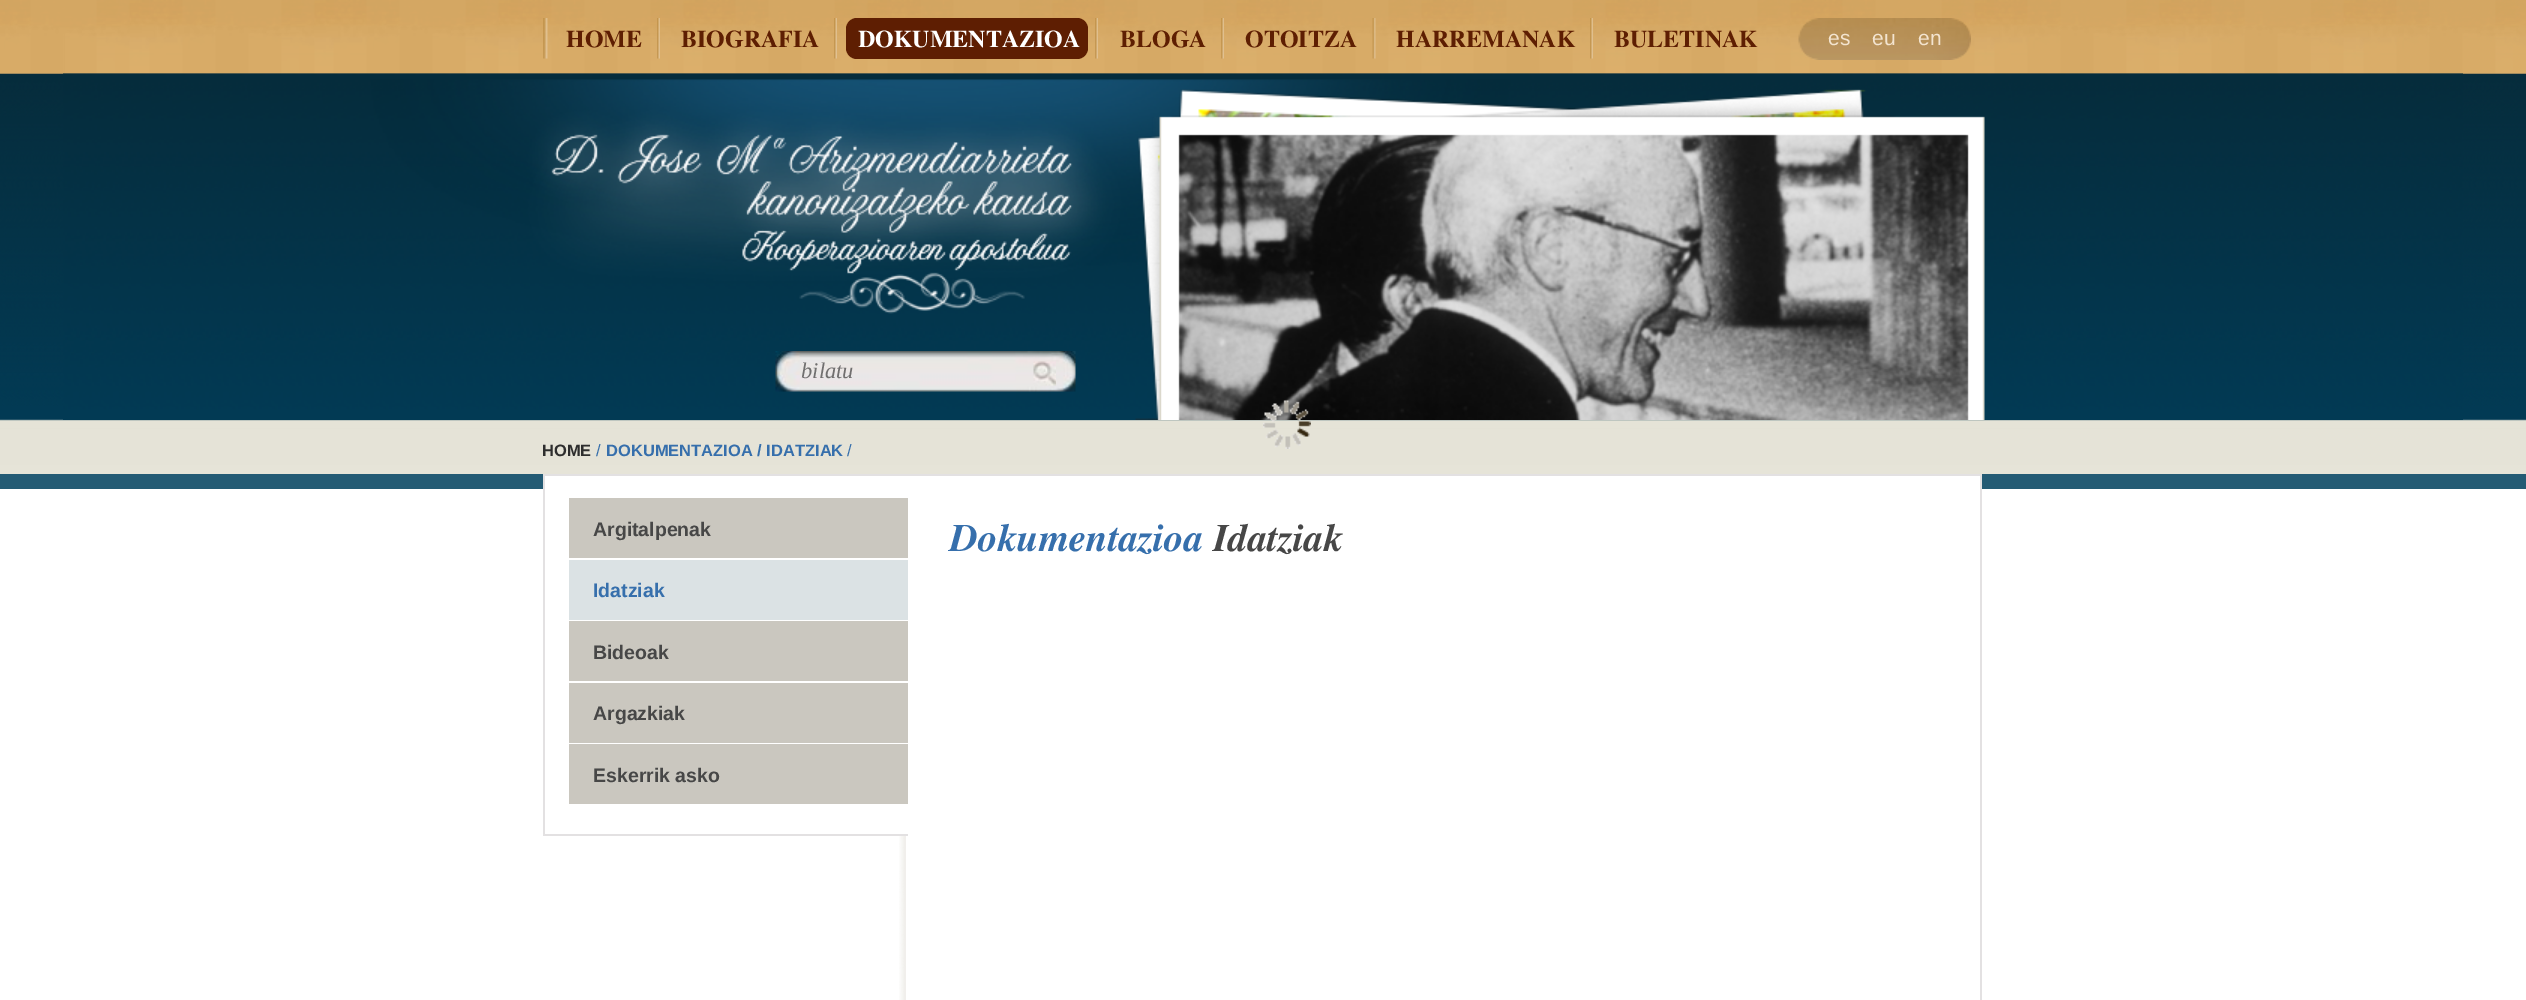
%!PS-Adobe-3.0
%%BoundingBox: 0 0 2526 1000
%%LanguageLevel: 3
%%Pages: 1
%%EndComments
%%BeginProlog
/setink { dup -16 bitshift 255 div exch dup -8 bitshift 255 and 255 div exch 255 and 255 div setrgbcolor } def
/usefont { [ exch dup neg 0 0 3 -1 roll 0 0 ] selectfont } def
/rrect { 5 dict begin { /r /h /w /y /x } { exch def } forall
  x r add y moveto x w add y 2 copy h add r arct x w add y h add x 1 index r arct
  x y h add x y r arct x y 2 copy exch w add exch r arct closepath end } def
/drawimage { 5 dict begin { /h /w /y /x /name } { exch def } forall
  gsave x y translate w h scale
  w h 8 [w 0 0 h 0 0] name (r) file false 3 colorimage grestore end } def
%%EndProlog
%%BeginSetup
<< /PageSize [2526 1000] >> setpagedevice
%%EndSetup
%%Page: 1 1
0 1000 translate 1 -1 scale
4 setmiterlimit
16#FFFFFF setink
0 0 2526 1000 rectfill
(img1.raw) 0 73 2526 401 drawimage
16#245B74 setink
0 474 2526 15 rectfill
(img2.raw) 0 0 2526 74 drawimage
(img3.raw) 543 18 5 41 drawimage
/FreeSerif-Bold 24 usefont
16#5E1E02 setink
566 47 moveto (HOME) show
(img4.raw) 657 18 3 41 drawimage
681 47 moveto (BIOGRAFIA) show
(img5.raw) 834 18 3 41 drawimage
846 18 242 41 11 rrect fill
16#FFFFFF setink
858 47 moveto (DOKUMENTAZIOA) show
(img6.raw) 1095 18 3 41 drawimage
16#5E1E02 setink
1120 47 moveto (BLOGA) show
(img7.raw) 1221 18 3 41 drawimage
1245 47 moveto (OTOITZA) show
(img8.raw) 1372 18 4 41 drawimage
1396 47 moveto (HARREMANAK) show
(img9.raw) 1590 18 3 41 drawimage
1614 47 moveto (BULETINAK) show
(img10.raw) 1798 18 173 42 drawimage
/LiberationSans-Regular 21 usefont
16#F3E4D0 setink
[
    [(es) 1828 45]
    [(eu) 1872 45]
    [(en) 1918 45]
] { aload pop moveto show } forall
(img11.raw) 63 73 2400 347 drawimage
(img12.raw) 775 351 301 41 drawimage
/LiberationSerif-Italic 22.5 usefont
16#706F6F setink
801 378 moveto (bilatu) show
(img13.raw) 1033 361 23 25 drawimage
(img14.raw) 1135 89 850 331 drawimage
/LiberationSans-Bold 16.5 usefont
16#2E2E2E setink
542 456 moveto (HOME) show
/LiberationSans-Regular 16.5 usefont
16#366FAC setink
596 456 moveto (/) show
/LiberationSans-Bold 16.5 usefont
606 456 moveto (DOKUMENTAZIOA / IDATZIAK) show
/LiberationSans-Regular 16.5 usefont
847 456 moveto (/) show
[
    [543 834 365 2 16#E3E1E2]
    [543 474 1439 2 16#E3E1E2]
    [543 474 2 362 16#E3E1E2]
    [569 498 339 60 16#CAC7BF]
] { aload pop setink rectfill } forall
/LiberationSans-Bold 19.5 usefont
16#474747 setink
593 536 moveto (Argitalpenak) show
16#DBE2E4 setink
569 560 339 60 rectfill
16#366FAC setink
593 597 moveto (Idatziak) show
16#CAC7BF setink
569 621 339 60 rectfill
16#474747 setink
593 659 moveto (Bideoak) show
16#CAC7BF setink
569 683 339 60 rectfill
16#474747 setink
593 720 moveto (Argazkiak) show
16#CAC7BF setink
569 744 339 60 rectfill
16#474747 setink
593 782 moveto (Eskerrik asko) show
16#FFFFFF setink
545 476 1435 13 rectfill
16#E3E1E2 setink
1980 474 2 526 rectfill
(img15.raw) 899 836 7 164 drawimage
/FreeSerif-BoldItalic 39 usefont
16#366FAC setink
949 551 moveto (Dokumentazioa) show
16#474747 setink
1213 551 moveto (Idatziak) show
(img16.raw) 1263 400 48 49 drawimage
showpage
%%EOF
